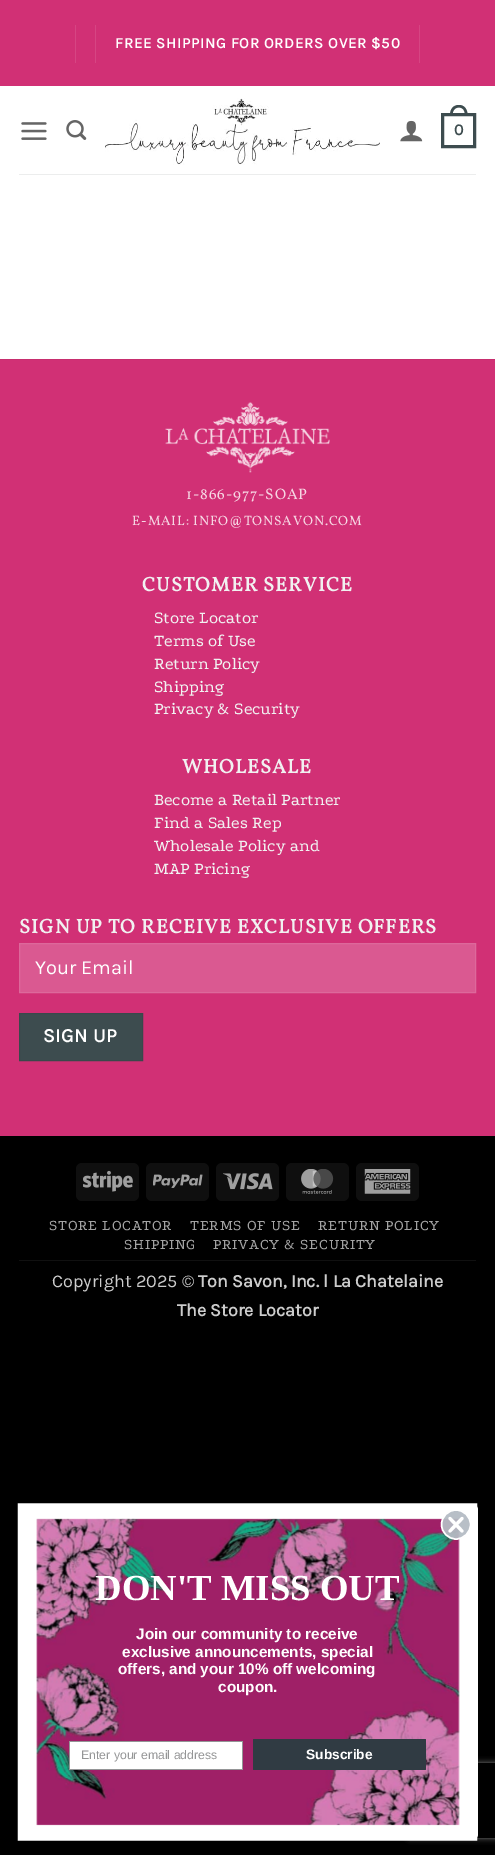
%!PS-Adobe-3.0
%%BoundingBox: 0 0 495 1855
%%LanguageLevel: 3
%%Pages: 1
%%EndComments
%%BeginProlog
/setink { dup -16 bitshift 255 div exch dup -8 bitshift 255 and 255 div exch 255 and 255 div setrgbcolor } def
/usefont { [ exch dup neg 0 0 3 -1 roll 0 0 ] selectfont } def
/setalpha { dup .setfillconstantalpha .setstrokeconstantalpha } def
/disc { newpath 0 360 arc closepath } def
/rrect { 5 dict begin { /r /h /w /y /x } { exch def } forall
  x r add y moveto x w add y 2 copy h add r arct x w add y h add x 1 index r arct
  x y h add x y r arct x y 2 copy exch w add exch r arct closepath end } def
/softshadow { 12 dict begin { /a /b /q /h /w /y /x } { exch def } forall gsave /was 0 def
  9 -2 -9 { dup b mul 4 div /e exch def 1 sub .425 mul 2.718 exch exp 1 add a .99 .min exch div /now exch def
    1 1 now sub 1 was sub div sub setalpha /was now def
    w h .min e 2 mul add 0 gt { x e sub y e sub w e 2 mul add h e 2 mul add
      q e add b .6 mul add w h .min 2 div e add .min 0 .max rrect fill } if } for grestore end } def
/drawimage { 5 dict begin { /h /w /y /x /name } { exch def } forall
  gsave x y translate w h scale
  w h 8 [w 0 0 h 0 0] name (r) file false 3 colorimage grestore end } def
%%EndProlog
%%BeginSetup
<< /PageSize [495 1855] /PageUsesTransparency true >> setpagedevice
%%EndSetup
%%Page: 1 1
0 .pushpdf14devicefilter
0 1855 translate 1 -1 scale
4 setmiterlimit
16#000000 setink
0 0 495 1855 rectfill
[
    [0 86 495 273 16#FFFFFF]
    [0 0 495 86 16#D13075]
    [75 25 1 38 16#D64583]
    [95 25 1 38 16#D64583]
] { aload pop setink rectfill } forall
/Karla-Bold 15 usefont
16#FFFFFF setink
115 48 moveto 0.75 0 (FREE SHIPPING FOR ORDERS OVER $50) ashow
16#D64583 setink
419 25 1 38 rectfill
(img1.raw) 21 122 26 18 drawimage
(img2.raw) 66 120 21 20 drawimage
(img3.raw) 105 98 275 67 drawimage
(img4.raw) 400 120 23 22 drawimage
16#3D4C4F setink
3 setlinewidth
442.5 114.5 32 32 rectstroke
459 105 moveto 464.5 105 467.5 109.5 467.5 115 curveto 450 115 lineto 450 109.5 453 105 459 105 curveto closepath 459 107.5 moveto 463 107.5 465 111 465 115 curveto 452.5 115 lineto 452.5 111 454.5 107.5 459 107.5 curveto closepath eofill
/Karla-Bold 16 usefont
454 135 moveto (0) show
[
    [19 174 457 1 16#ECEDED]
    [0 360 495 776 16#D13075]
    [0 359 495 1 16#C72E6F]
] { aload pop setink rectfill } forall
(img5.raw) 165 402 165 71 drawimage
/Vollkorn-Regular 15.25 usefont
16#F6D6E3 setink
186 499 moveto 0.85 0 (1-866-977-SOAP) ashow
/Vollkorn-Regular 13.6 usefont
132 525 moveto 0.85 0 (E-MAIL: INFO@TONSAVON.COM) ashow
/Vollkorn-Bold 20 usefont
16#F1F1F1 setink
142 591 moveto 1 0 (CUSTOMER SERVICE) ashow
/Podkova-Regular 17.5 usefont
[
    [(Store Locator) 154 623]
    [(Terms of Use) 154 646]
    [(Return Policy) 154 669]
    [(Shipping) 154 692]
    [(Privacy & Security) 154 714]
] { aload pop moveto show } forall
/Vollkorn-Bold 20 usefont
182 773 moveto 1 0 (WHOLESALE) ashow
/Podkova-Regular 17.5 usefont
[
    [(Become a Retail Partner) 154 805]
    [(Find a Sales Rep) 154 828]
    [(Wholesale Policy and) 154 851]
    [(MAP Pricing) 154 874]
] { aload pop moveto show } forall
/Vollkorn-Bold 20 usefont
19 933 moveto 1 0 (SIGN UP TO RECEIVE EXCLUSIVE OFFERS) ashow
16#DA5991 setink
19.5 943.5 moveto 475.5 943.5 lineto 475.5 992.5 lineto 19.5 992.5 lineto closepath gsave fill grestore
16#DD689B setink
1 setlinewidth
stroke
/Karla-Regular 20 usefont
16#FFFFFF setink
35 974 moveto (Your Email) show
16#3D4C4F setink
19.5 1013.5 moveto 142.5 1013.5 lineto 142.5 1060.5 lineto 19.5 1060.5 lineto closepath gsave fill grestore
16#3A484B setink
stroke
/Karla-Bold 19.5 usefont
16#FFFFFF setink
43 1042 moveto 0.5 0 (SIGN UP) ashow
16#0F0F0F setink
76 1163 63 38 6 rrect fill
(img6.raw) 83 1170 50 22 drawimage
146 1163 63 38 6 rrect fill
(img7.raw) 153 1174 50 14 drawimage
216 1163 63 38 6 rrect fill
(img8.raw) 223 1173 50 17 drawimage
286 1163 63 38 6 rrect fill
(img9.raw) 301 1169 33 25 drawimage
356 1163 63 38 6 rrect fill
(img10.raw) 364 1169 47 25 drawimage
16#101010 setink
19 1260 457 1 rectfill
/Podkova-Regular 15.25 usefont
16#A3A3A3 setink
49 1230 moveto 0.75 0 (STORE LOCATOR) ashow
190 1230 moveto 0.75 0 (TERMS OF USE) ashow
318 1230 moveto 0.75 0 (RETURN POLICY) ashow
124 1249 moveto 0.75 0 (SHIPPING) ashow
213 1249 moveto 0.75 0 (PRIVACY & SECURITY) ashow
/Karla-Regular 18 usefont
16#CCCCCC setink
52 1287 moveto (Copyright 2025 ©) show
/Karla-Bold 18 usefont
198 1287 moveto (Ton Savon, Inc. l La Chatelaine) show
177 1316 moveto (The Store Locator) show
gsave
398 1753 moveto 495 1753 lineto 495 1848 lineto 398 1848 lineto closepath 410.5 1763 moveto 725.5 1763 lineto 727 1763 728 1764 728 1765.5 curveto 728 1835.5 lineto 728 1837 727 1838 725.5 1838 curveto 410.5 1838 lineto 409 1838 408 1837 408 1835.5 curveto 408 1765.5 lineto 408 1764 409 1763 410.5 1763 curveto closepath eoclip newpath
16#808080 setink
408 1763 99 75 2.5 3 1 softshadow
grestore
16#FFFFFF setink
18 1504 460 336 6 rrect fill
(img11.raw) 36 1518 424 308 drawimage
15.3 setlinewidth
25.5 1511 moveto 469.5 1511 lineto 469.5 1833 lineto 25.5 1833 lineto closepath stroke
0.94 setalpha
16#B4BBC3 setink
456 1524.5 14.5 disc fill
gsave
440 1510 31 30 rectclip
1 setalpha
16#FFFFFF setink
1.5 setlinewidth
456 1524.5 14.5 disc stroke
grestore
1 setalpha
16#FFFFFF setink
3.1 setlinewidth
1 setlinecap
1 setlinejoin
450 1518.5 moveto 462 1531 lineto 450 1531 moveto 462 1518.5 lineto closepath stroke
/LiberationSerif-Bold 36.75 usefont
95 1600 moveto (DON'T MISS OUT) show
/LiberationSans-Bold 15.3 usefont
[
    [(Join our community to receive) 136 1639]
    [(exclusive announcements, special) 122 1657]
    [(offers, and your 10% off welcoming) 118 1674]
    [(coupon.) 218 1692]
] { aload pop moveto show } forall
69.4 1741.4 173.2 28.2 0.6 rrect gsave fill grestore
16#949596 setink
0.8 setlinewidth
0 setlinecap
0 setlinejoin
stroke
/LiberationSans-Regular 12.25 usefont
81 1759 moveto (Enter your email address) show
16#303B43 setink
253 1739 173 31 1 rrect fill
/LiberationSans-Bold 13.75 usefont
16#FFFFFF setink
306 1759 moveto (Subscribe) show
.poppdf14devicefilter showpage
%%EOF
